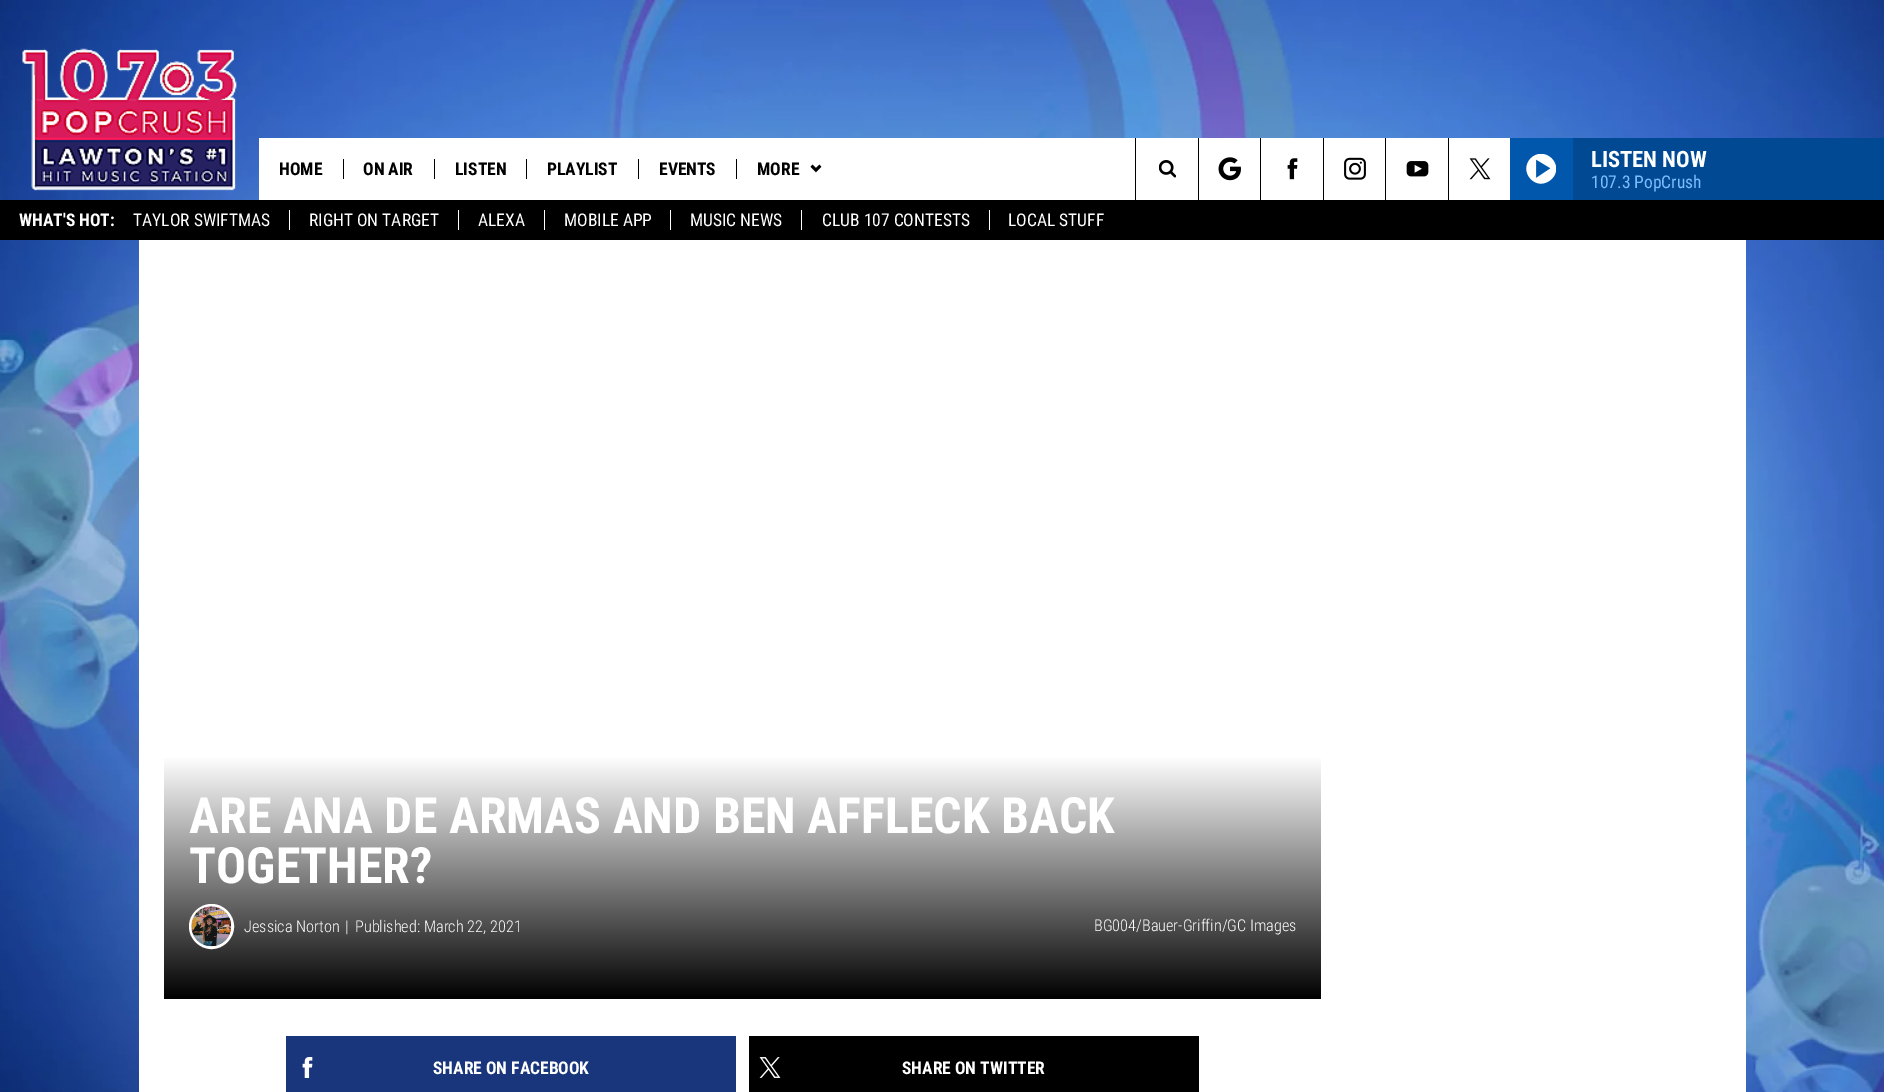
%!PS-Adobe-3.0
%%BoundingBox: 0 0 1884 1092
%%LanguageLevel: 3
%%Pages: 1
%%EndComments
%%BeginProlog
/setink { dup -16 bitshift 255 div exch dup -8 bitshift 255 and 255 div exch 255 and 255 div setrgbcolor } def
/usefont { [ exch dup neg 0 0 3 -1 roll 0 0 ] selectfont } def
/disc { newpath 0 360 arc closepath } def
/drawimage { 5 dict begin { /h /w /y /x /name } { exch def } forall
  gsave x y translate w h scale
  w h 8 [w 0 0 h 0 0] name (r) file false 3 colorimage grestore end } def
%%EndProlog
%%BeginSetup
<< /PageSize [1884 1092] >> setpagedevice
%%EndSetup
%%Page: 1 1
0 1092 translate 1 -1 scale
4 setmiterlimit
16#FFFFFF setink
0 0 1884 1092 rectfill
(img1.raw) 0 240 1884 852 drawimage
(img2.raw) 0 0 1884 200 drawimage
(img3.raw) 22 48 215 143 drawimage
259 138 1251 62 rectfill
/RobotoCondensed-Bold 17.5 usefont
16#000000 setink
279 175 moveto (HOME) show
343 159 1 20 rectfill
363 175 moveto (ON AIR) show
434 159 1 20 rectfill
455 175 moveto (LISTEN) show
526 159 1 20 rectfill
547 175 moveto (PLAYLIST) show
638 159 1 20 rectfill
659 175 moveto (EVENTS) show
736 159 1 20 rectfill
757 175 moveto (MORE) show
(img4.raw) 810 164 12 9 drawimage
1135 138 1 62 rectfill
(img5.raw) 1159 160 17 18 drawimage
1198 138 1 62 rectfill
(img6.raw) 1218 157 23 24 drawimage
1260 138 1 62 rectfill
(img7.raw) 1287 158 11 22 drawimage
1323 138 1 62 rectfill
(img8.raw) 1344 157 22 23 drawimage
1385 138 1 62 rectfill
(img9.raw) 1406 161 23 16 drawimage
1448 138 1 62 rectfill
(img10.raw) 1469 158 22 22 drawimage
16#0157AC setink
1510 138 63 62 rectfill
(img11.raw) 1526 154 30 30 drawimage
16#014A93 setink
1573 138 311 62 rectfill
/RobotoCondensed-Bold 22.5 usefont
16#FFFFFF setink
1591 167 moveto (LISTEN NOW) show
/RobotoCondensed-Regular 17.5 usefont
16#7BBDFE setink
1591 188 moveto (107.3 PopCrush) show
16#000000 setink
0 200 1884 40 rectfill
/RobotoCondensed-Bold 17.5 usefont
16#FFFFFF setink
19 226 moveto (WHAT'S HOT:) show
/RobotoCondensed-Regular 17.5 usefont
133 226 moveto (TAYLOR SWIFTMAS) show
309 226 moveto (RIGHT ON TARGET) show
289 210 1 20 rectfill
478 226 moveto (ALEXA) show
458 210 1 20 rectfill
564 226 moveto (MOBILE APP) show
544 210 1 20 rectfill
690 226 moveto (MUSIC NEWS) show
670 210 1 20 rectfill
822 226 moveto (CLUB 107 CONTESTS) show
801 210 1 20 rectfill
1008 226 moveto (LOCAL STUFF) show
989 210 1 20 rectfill
139 240 1607 852 rectfill
gsave 164 758 moveto 1321 758 lineto 1321 999 lineto 164 999 lineto closepath clip newpath
<< /ShadingType 2 /ColorSpace /DeviceRGB /Coords [743 756 743 999] /Extend [true true] /Function << /FunctionType 2 /Domain [0 1] /C0 [1 1 1] /C1 [0 0 0] /N 1 >> >> shfill grestore
/RobotoCondensed-Bold 50 usefont
189 833 moveto (ARE ANA DE ARMAS AND BEN AFFLECK BACK) show
189 883 moveto (TOGETHER?) show
3 setlinewidth
211.5 926.5 21 disc stroke
(img12.raw) 191 906 41 41 drawimage
/RobotoCondensed-Light 16.25 usefont
[
    [(Jessica Norton) 244 932]
    [(|) 345 932]
    [(Published: March 22, 2021) 355 932]
    [(BG004/Bauer-Griffin/GC Images) 1094 931]
] { aload pop moveto show } forall
16#19367C setink
286 1036 450 56 rectfill
(img13.raw) 302 1057 11 21 drawimage
/RobotoCondensed-Bold 17.5 usefont
16#FFFFFF setink
433 1074 moveto (SHARE ON FACEBOOK) show
16#000000 setink
749 1036 450 56 rectfill
(img14.raw) 759 1057 22 21 drawimage
16#FFFFFF setink
902 1074 moveto (SHARE ON TWITTER) show
showpage
%%EOF
